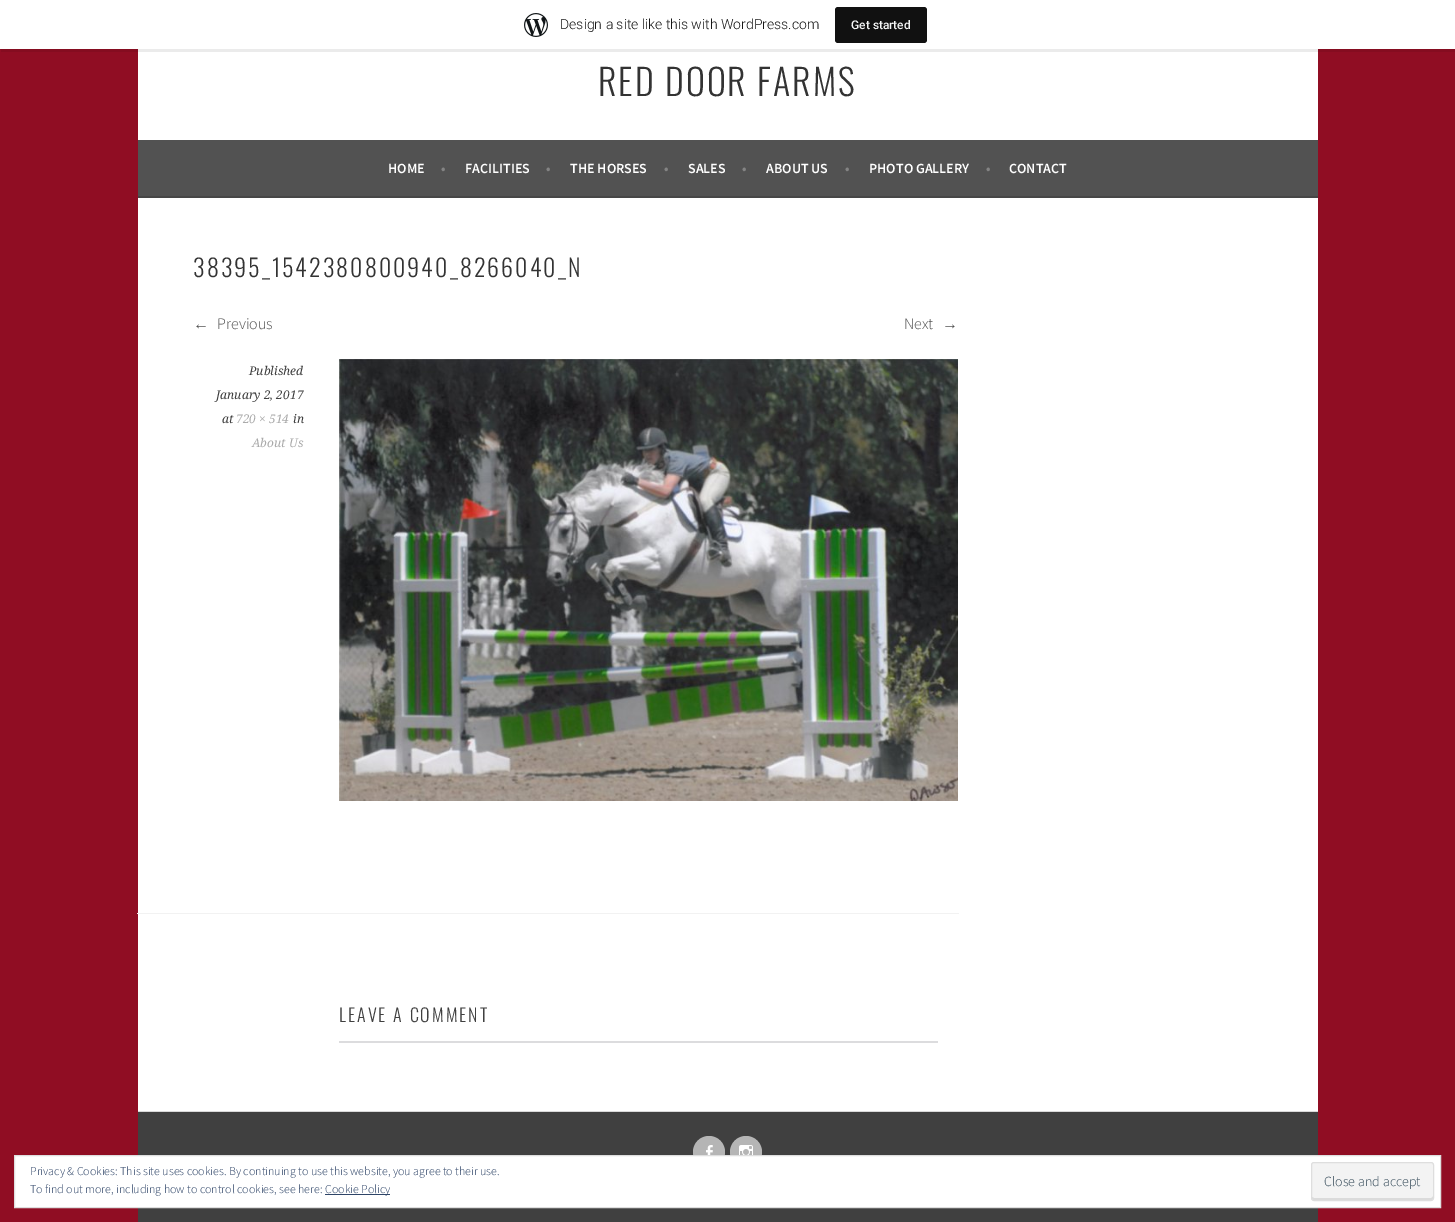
%!PS-Adobe-3.0
%%BoundingBox: 0 0 1455 1222
%%LanguageLevel: 3
%%Pages: 1
%%EndComments
%%BeginProlog
/setink { dup -16 bitshift 255 div exch dup -8 bitshift 255 and 255 div exch 255 and 255 div setrgbcolor } def
/usefont { [ exch dup neg 0 0 3 -1 roll 0 0 ] selectfont } def
/setalpha { dup .setfillconstantalpha .setstrokeconstantalpha } def
/disc { newpath 0 360 arc closepath } def
/rrect { 5 dict begin { /r /h /w /y /x } { exch def } forall
  x r add y moveto x w add y 2 copy h add r arct x w add y h add x 1 index r arct
  x y h add x y r arct x y 2 copy exch w add exch r arct closepath end } def
/drawimage { 5 dict begin { /h /w /y /x /name } { exch def } forall
  gsave x y translate w h scale
  w h 8 [w 0 0 h 0 0] name (r) file false 3 colorimage grestore end } def
%%EndProlog
%%BeginSetup
<< /PageSize [1455 1222] /PageUsesTransparency true >> setpagedevice
%%EndSetup
%%Page: 1 1
0 .pushpdf14devicefilter
0 1222 translate 1 -1 scale
4 setmiterlimit
16#900D23 setink
0 0 1455 1222 rectfill
16#FFFFFF setink
138 49 1180 91 rectfill
0.08 setalpha
16#000000 setink
1 49 moveto 1 52 lineto 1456 52 lineto 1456 3 lineto 1455 3 lineto 1455 49 lineto closepath fill
1 setalpha
16#FFFFFF setink
0 0 1455 49 rectfill
(img1.raw) 524 13 24 24 drawimage
/Roboto-Light 14 usefont
16#171717 setink
560 29 moveto (Design a site like this with WordPress.com) show
16#111111 setink
835 7 92 36 3 rrect fill
/Roboto-Medium 12 usefont
16#F6F7F7 setink
851 29 moveto (Get started) show
/Oswald-Light 36 usefont
16#333333 setink
598 96 moveto 2 0 (RED DOOR FARMS) ashow
16#525252 setink
138 140 1180 56 rectfill
16#464646 setink
138 196 1180 2 rectfill
/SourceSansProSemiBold-SemiBold 14 usefont
16#FFFFFF setink
388 173 moveto (HOME) show
16#848484 setink
441 173 moveto (•) show
16#FFFFFF setink
465 173 moveto (FACILITIES) show
16#848484 setink
546 173 moveto (•) show
16#FFFFFF setink
570 173 moveto (THE HORSES) show
16#848484 setink
664 173 moveto (•) show
16#FFFFFF setink
688 173 moveto (SALES) show
16#848484 setink
742 173 moveto (•) show
16#FFFFFF setink
766 173 moveto (ABOUT US) show
16#848484 setink
845 173 moveto (•) show
16#FFFFFF setink
869 173 moveto (PHOTO GALLERY) show
16#848484 setink
986 173 moveto (•) show
16#FFFFFF setink
1009 173 moveto (CONTACT) show
138 198 1180 913 rectfill
/Oswald-Light 24 usefont
16#333333 setink
193 277 moveto 2 0 (38395_1542380800940_8266040_N) ashow
/LiberationSans-Regular 16 usefont
16#525252 setink
193 329 moveto (←) show
/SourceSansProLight-Light 16 usefont
217 329 moveto (Previous) show
904 329 moveto (Next) show
/LiberationSans-Regular 16 usefont
942 329 moveto (→) show
/DroidSerif-Italic 12 usefont
16#404040 setink
[
    [(Published) 249 375]
    [(January 2, 2017) 216 399]
    [(at) 222 423]
] { aload pop moveto show } forall
16#AAAAAA setink
236 423 moveto (720 × 514) show
16#404040 setink
293 423 moveto (in) show
16#AAAAAA setink
252 447 moveto (About Us) show
(img2.raw) 339 359 619 442 drawimage
16#F2F2F2 setink
137 913 822 1 rectfill
/Oswald-Light 18 usefont
16#404040 setink
339 1022 moveto 2 0 (LEAVE A COMMENT) ashow
[
    [339 1041 599 2 16#DCDCDE]
    [138 1112 1180 110 16#404040]
    [138 1111 1180 1 16#D9D9D9]
] { aload pop setink rectfill } forall
16#B5B5B5 setink
709 1152 16 disc fill
(img3.raw) 706 1145 7 10 drawimage
746 1152 16 disc fill
(img4.raw) 739 1145 14 10 drawimage
16#FFFFFF setink
14.5 1155.5 moveto 1440.5 1155.5 lineto 1440.5 1207.5 lineto 14.5 1207.5 lineto closepath gsave fill grestore
16#DEDEDE setink
stroke
/SourceSansProLight-Light 12 usefont
16#2E4467 setink
30 1175 moveto (Privacy & Cookies: This site uses cookies. By continuing to use this website, you agree to their use.) show
30 1193 moveto (To find out more, including how to control cookies, see here:) show
325 1194 65 1 rectfill
325 1193 moveto (Cookie Policy) show
16#F3F3F3 setink
1311 1162 123 39 3 rrect fill
16#DBDBDB setink
1312 1196 moveto 1312 1198 lineto 1312 1199 1313 1200 1314 1200 curveto 1431 1200 lineto 1432 1200 1433 1199 1433 1198 curveto 1433 1196 lineto 1433 1197 1432 1198 1431 1198 curveto 1314 1198 lineto 1312 1197 lineto closepath fill
16#DEDEDE setink
1311.5 1162.5 122 38 2.5 rrect stroke
/SourceSansProLight-Light 14 usefont
16#2E4453 setink
1324 1186 moveto (Close and accept) show
.poppdf14devicefilter showpage
%%EOF
